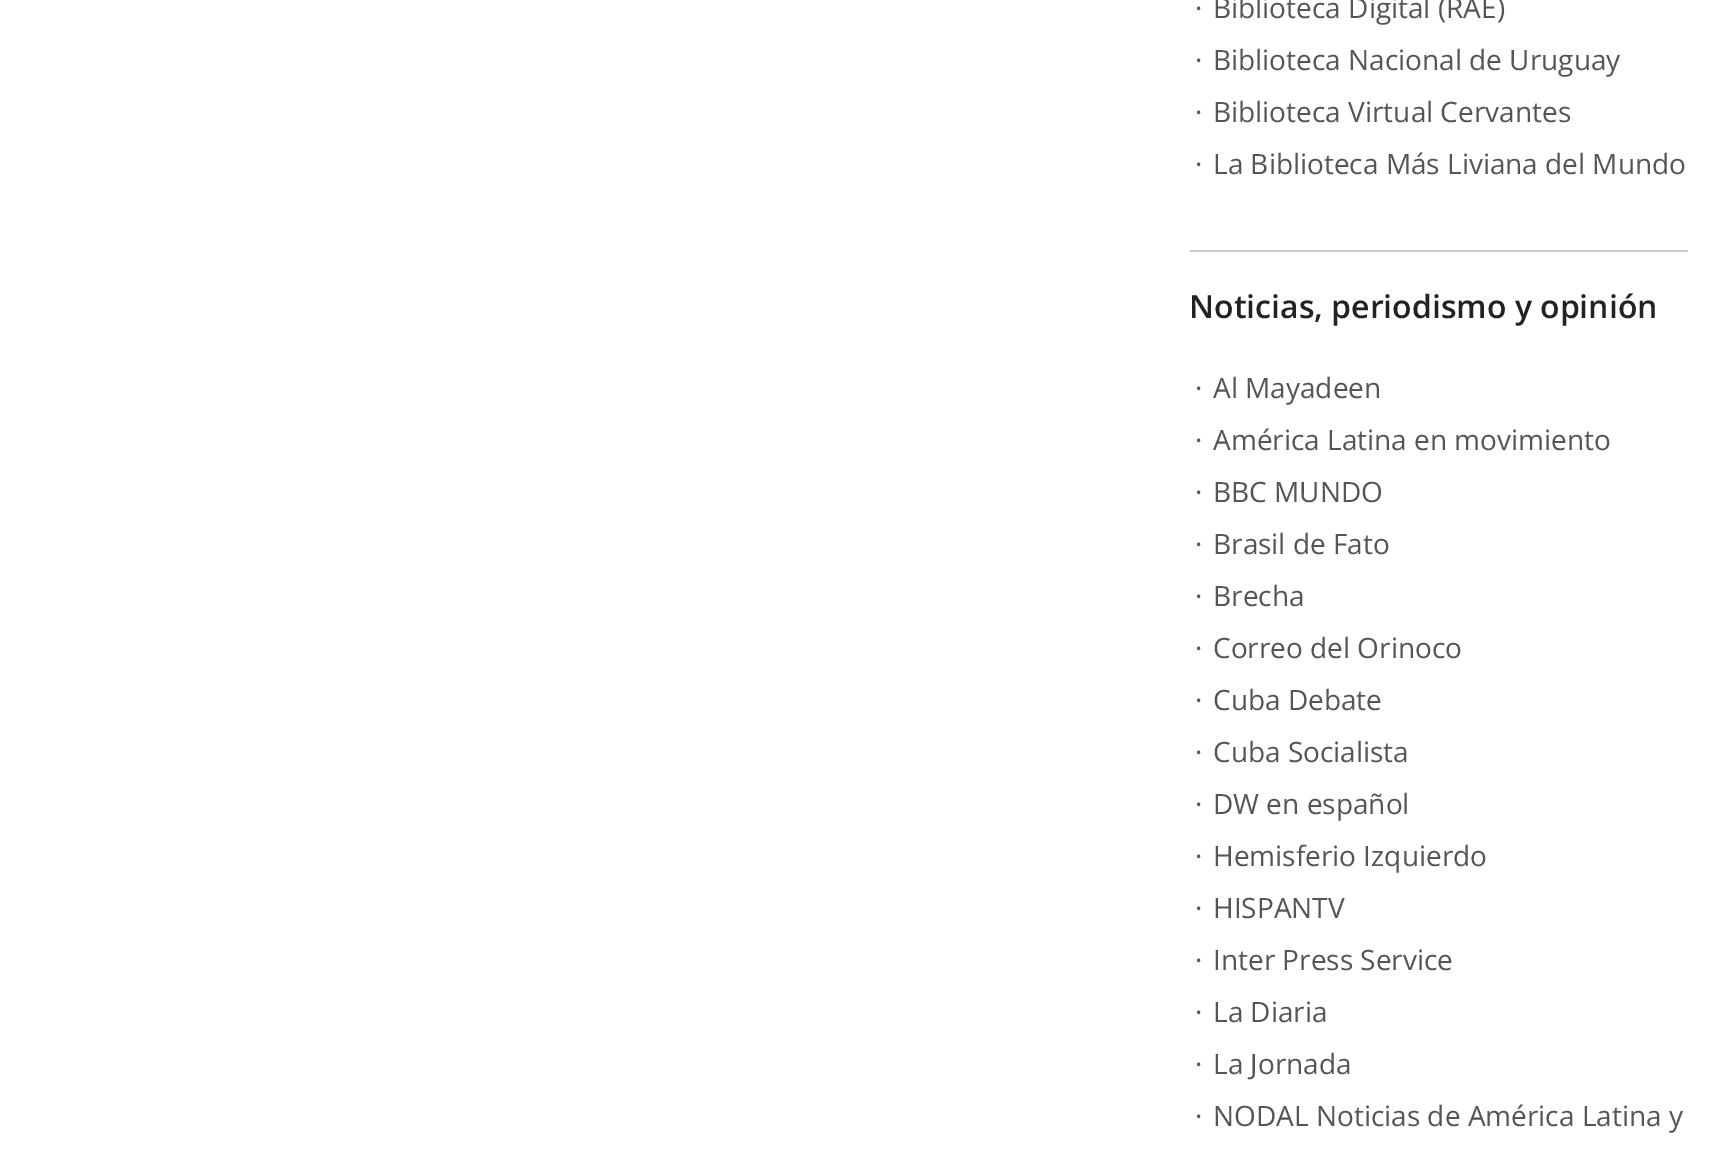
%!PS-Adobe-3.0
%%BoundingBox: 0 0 1735 1155
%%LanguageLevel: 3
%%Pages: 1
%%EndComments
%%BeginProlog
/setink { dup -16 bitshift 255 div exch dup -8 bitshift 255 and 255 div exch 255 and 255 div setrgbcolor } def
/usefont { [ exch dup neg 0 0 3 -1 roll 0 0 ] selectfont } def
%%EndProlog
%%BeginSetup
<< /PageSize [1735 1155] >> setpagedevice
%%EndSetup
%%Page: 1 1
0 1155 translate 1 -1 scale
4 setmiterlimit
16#FFFFFF setink
0 0 1735 1155 rectfill
16#CCCCCC setink
1190 250 498 2 rectfill
/OpenSans-Regular 28 usefont
16#555555 setink
[
    [(·) 1195 18]
    [(Biblioteca Digital \(RAE\)) 1213 18]
    [(·) 1195 70]
    [(Biblioteca Nacional de Uruguay) 1213 70]
    [(·) 1195 122]
    [(Biblioteca Virtual Cervantes) 1213 122]
    [(·) 1195 174]
    [(La Biblioteca Más Liviana del Mundo) 1213 174]
] { aload pop moveto show } forall
/OpenSans-SemiBold 32 usefont
16#222222 setink
1189 318 moveto (Noticias, periodismo y opinión) show
/OpenSans-Regular 28 usefont
16#555555 setink
[
    [(·) 1195 398]
    [(Al Mayadeen) 1213 398]
    [(·) 1195 450]
    [(América Latina en movimiento) 1213 450]
    [(·) 1195 502]
    [(BBC MUNDO) 1213 502]
    [(·) 1195 554]
    [(Brasil de Fato) 1213 554]
    [(·) 1195 606]
    [(Brecha) 1213 606]
    [(·) 1195 658]
    [(Correo del Orinoco) 1213 658]
    [(·) 1195 710]
    [(Cuba Debate) 1213 710]
    [(·) 1195 762]
    [(Cuba Socialista) 1213 762]
    [(·) 1195 814]
    [(DW en español) 1213 814]
    [(·) 1195 866]
    [(Hemisferio Izquierdo) 1213 866]
    [(·) 1195 918]
    [(HISPANTV) 1213 918]
    [(·) 1195 970]
    [(Inter Press Service) 1213 970]
    [(·) 1195 1022]
    [(La Diaria) 1213 1022]
    [(·) 1195 1074]
    [(La Jornada) 1213 1074]
    [(·) 1195 1126]
    [(NODAL Noticias de América Latina y) 1213 1126]
] { aload pop moveto show } forall
showpage
%%EOF
